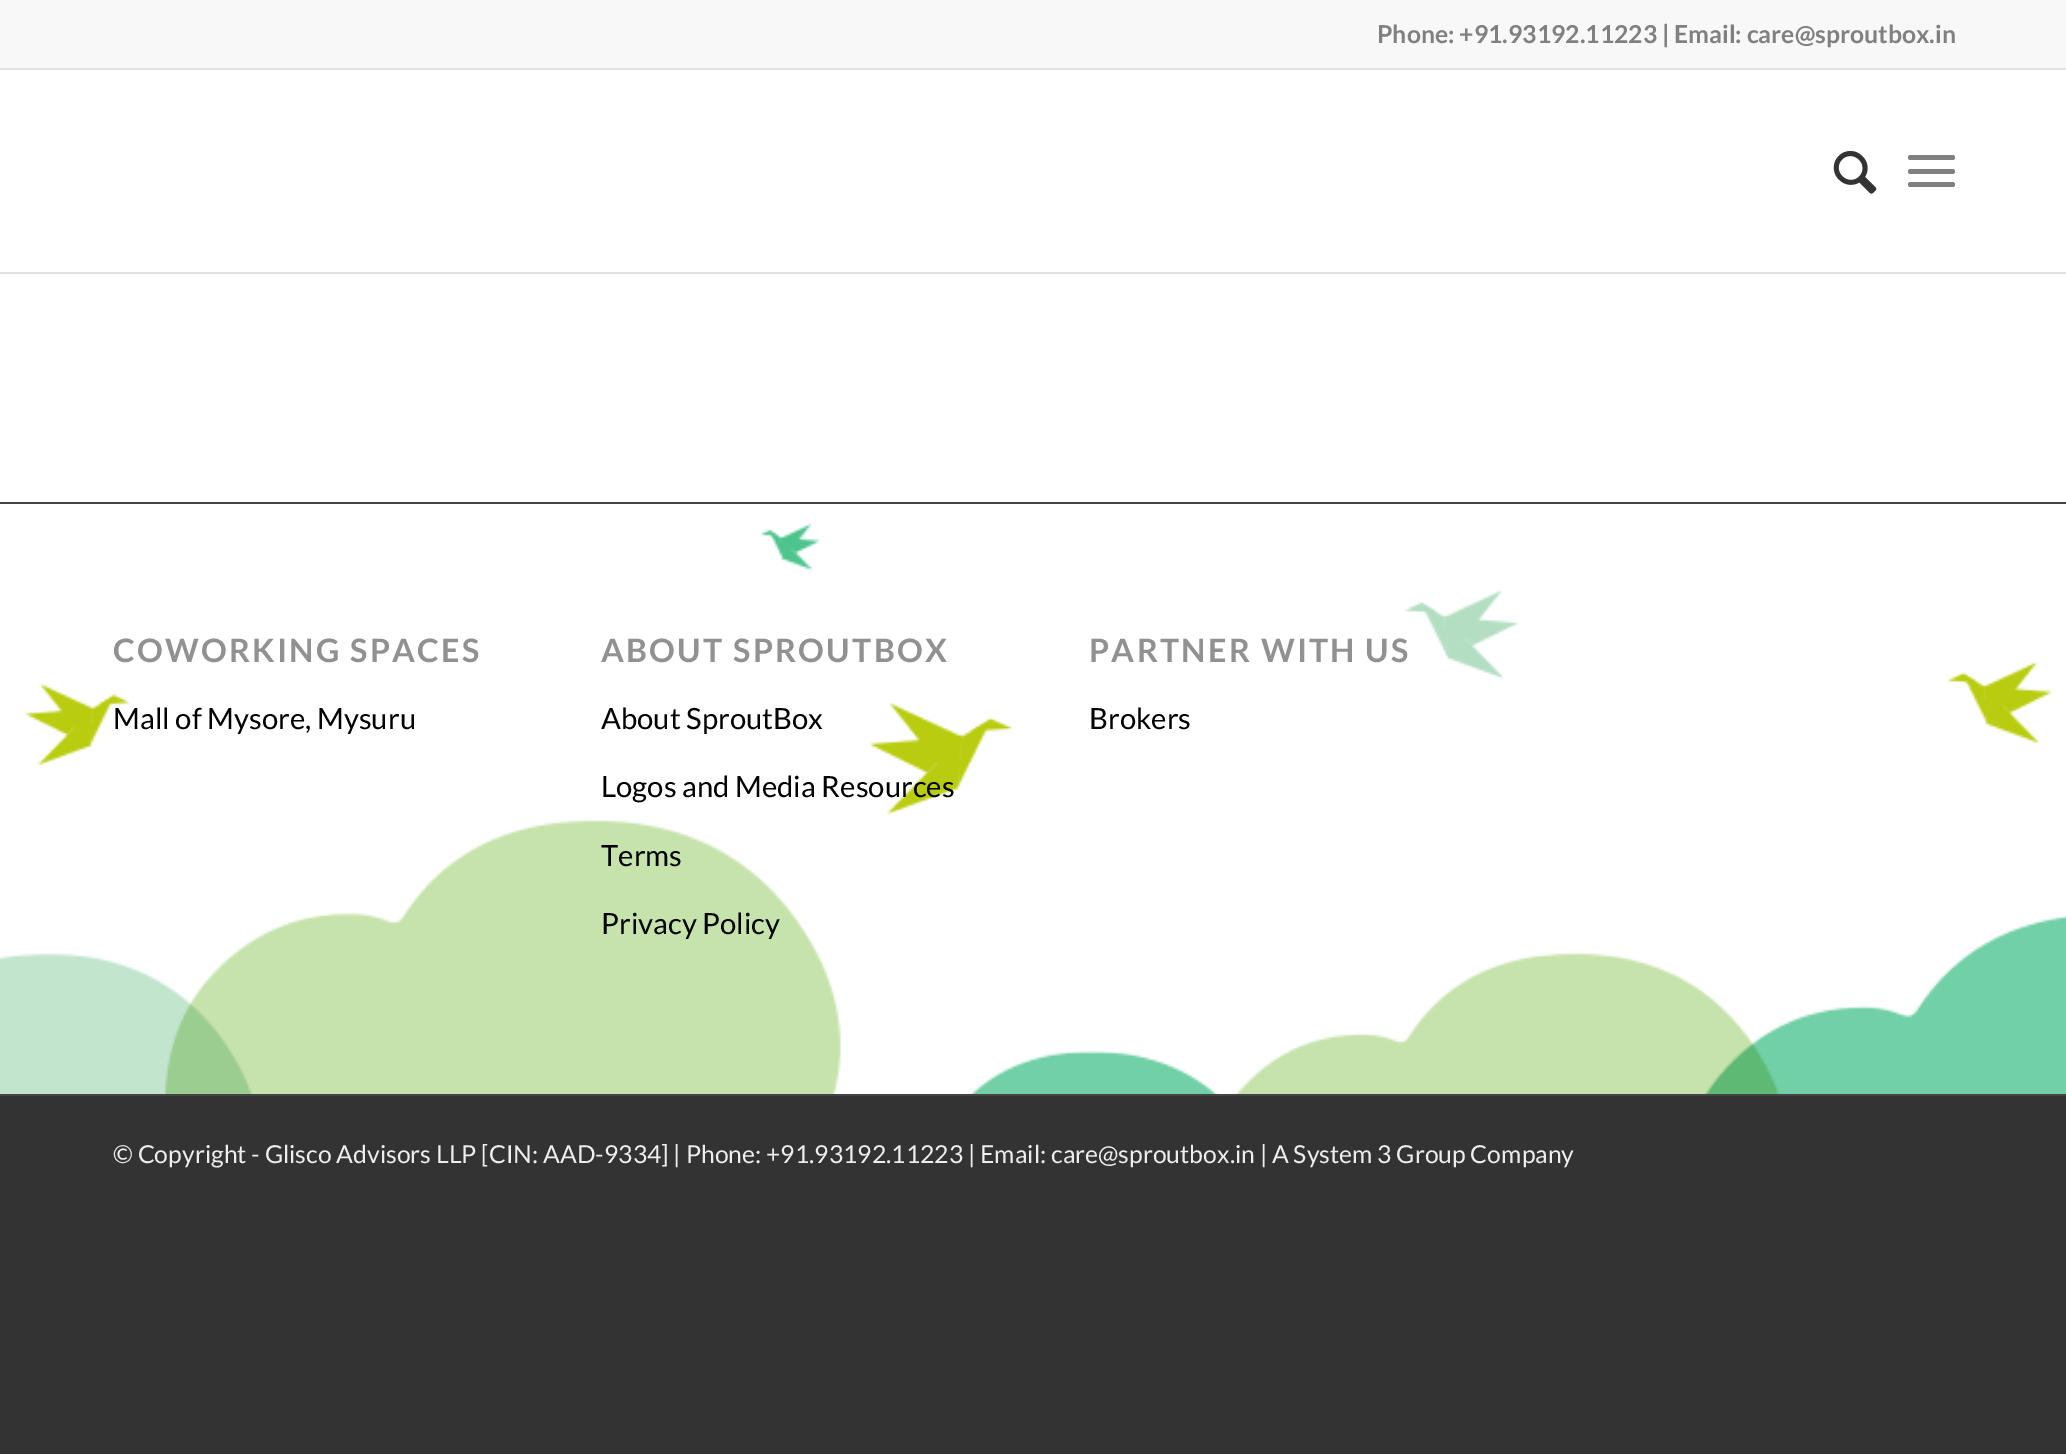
%!PS-Adobe-3.0
%%BoundingBox: 0 0 2066 1454
%%LanguageLevel: 3
%%Pages: 1
%%EndComments
%%BeginProlog
/setink { dup -16 bitshift 255 div exch dup -8 bitshift 255 and 255 div exch 255 and 255 div setrgbcolor } def
/usefont { [ exch dup neg 0 0 3 -1 roll 0 0 ] selectfont } def
/rrect { 5 dict begin { /r /h /w /y /x } { exch def } forall
  x r add y moveto x w add y 2 copy h add r arct x w add y h add x 1 index r arct
  x y h add x y r arct x y 2 copy exch w add exch r arct closepath end } def
/drawimage { 5 dict begin { /h /w /y /x /name } { exch def } forall
  gsave x y translate w h scale
  w h 8 [w 0 0 h 0 0] name (r) file false 3 colorimage grestore end } def
%%EndProlog
%%BeginSetup
<< /PageSize [2066 1454] >> setpagedevice
%%EndSetup
%%Page: 1 1
0 1454 translate 1 -1 scale
4 setmiterlimit
16#333333 setink
0 0 2066 1454 rectfill
16#F8F8F8 setink
0 0 2066 68 rectfill
16#E1E1E1 setink
0 68 2066 2 rectfill
/Lato-Bold 24.75 usefont
16#808080 setink
1377 43 moveto (Phone: +91.93192.11223 | Email: care@sproutbox.in) show
16#FFFFFF setink
0 70 2066 1024 rectfill
16#E1E1E1 setink
0 272 2066 2 rectfill
(img1.raw) 1833 151 44 43 drawimage
16#808080 setink
1908 169 47 5 2.5 rrect fill
1908 155 47 5 2.5 rrect fill
1908 182 47 5 2.5 rrect fill
(img2.raw) 0 523 2066 571 drawimage
16#444444 setink
0 502 2066 2 rectfill
/Lato-Bold 32.25 usefont
16#919191 setink
113 662 moveto 2.25 0 (COWORKING SPACES) ashow
/Lato-Regular 29.25 usefont
16#000000 setink
113 729 moveto (Mall of Mysore, Mysuru) show
/Lato-Bold 32.25 usefont
16#919191 setink
601 662 moveto 2.25 0 (ABOUT SPROUTBOX) ashow
/Lato-Regular 29.25 usefont
16#000000 setink
[
    [(About SproutBox) 601 729]
    [(Logos and Media Resources) 601 797]
    [(Terms) 601 866]
    [(Privacy Policy) 601 934]
] { aload pop moveto show } forall
/Lato-Bold 32.25 usefont
16#919191 setink
1089 662 moveto 2.25 0 (PARTNER WITH US) ashow
/Lato-Regular 29.25 usefont
16#000000 setink
1089 729 moveto (Brokers) show
16#444444 setink
0 1094 2066 2 rectfill
/Lato-Regular 24.75 usefont
16#EEEEEE setink
113 1163 moveto (© Copyright - Glisco Advisors LLP [CIN: AAD-9334] | Phone: +91.93192.11223 | Email: care@sproutbox.in | A System 3 Group Company) show
showpage
%%EOF
